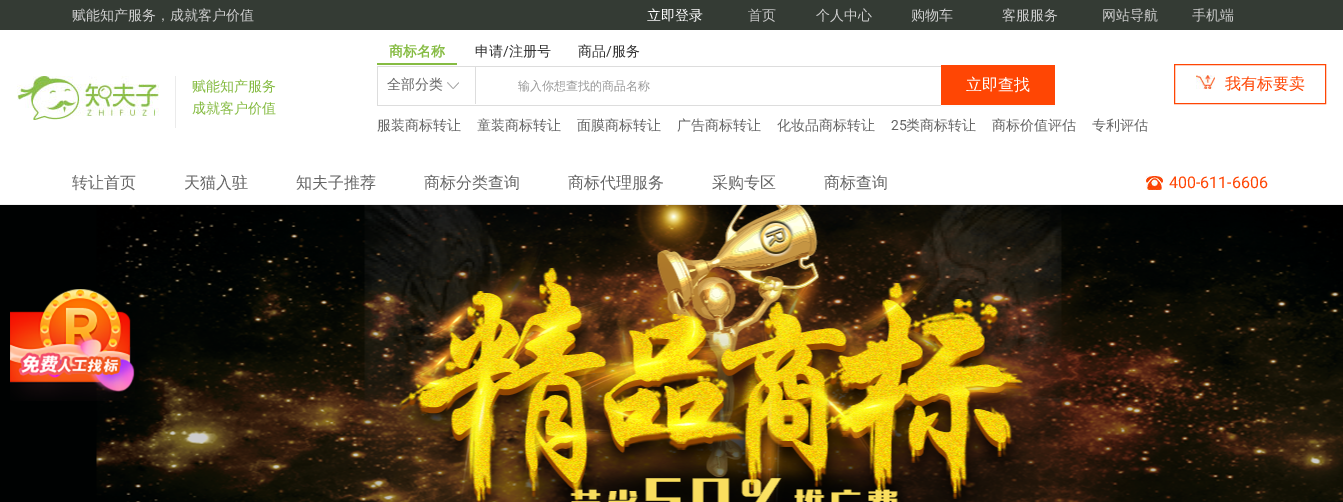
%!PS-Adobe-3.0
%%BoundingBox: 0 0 1343 502
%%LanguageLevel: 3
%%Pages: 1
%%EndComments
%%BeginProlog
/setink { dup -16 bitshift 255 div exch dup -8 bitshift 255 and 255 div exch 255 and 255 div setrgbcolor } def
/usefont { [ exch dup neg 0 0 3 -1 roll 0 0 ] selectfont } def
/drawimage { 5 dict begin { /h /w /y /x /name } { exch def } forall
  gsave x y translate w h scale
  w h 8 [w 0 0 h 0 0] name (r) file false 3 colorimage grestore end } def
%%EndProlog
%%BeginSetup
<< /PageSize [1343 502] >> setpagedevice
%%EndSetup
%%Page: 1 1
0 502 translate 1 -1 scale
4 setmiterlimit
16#F1F1F1 setink
0 0 1343 502 rectfill
16#343B34 setink
0 0 1343 30 rectfill
/WenQuanYiZenHei-Medium 14 usefont
16#CCCCCC setink
72 20 moveto (赋能知产服务，成就客户价值) show
16#FFFFFF setink
647 20 moveto (立即登录) show
16#CCCCCC setink
[
    [(首页) 748 20]
    [(个人中心) 816 20]
    [(购物车) 911 20]
    [(客服服务) 1002 20]
    [(网站导航) 1102 20]
    [(手机端) 1192 20]
] { aload pop moveto show } forall
16#FFFFFF setink
0 30 1343 174 rectfill
16#EBEBEB setink
175 76 1 52 rectfill
(img1.raw) 17 76 142 44 drawimage
16#86BC43 setink
192 91 moveto (赋能知产服务) show
192 113 moveto (成就客户价值) show
377 63 80 2 rectfill
/WenQuanYiZenHei-Bold 14 usefont
389 56 moveto (商标名称) show
/WenQuanYiZenHei-Medium 14 usefont
16#333333 setink
475 56 moveto (申请) show
/Roboto-Regular 14 usefont
503 56 moveto (/) show
/WenQuanYiZenHei-Medium 14 usefont
509 56 moveto (注册号) show
578 56 moveto (商品) show
/Roboto-Regular 14 usefont
606 56 moveto (/) show
/WenQuanYiZenHei-Medium 14 usefont
612 56 moveto (服务) show
(img2.raw) 447 82 12 7 drawimage
16#DDDDDD setink
377 66 564 1 rectfill
475 66 1 38 rectfill
16#666666 setink
387 89 moveto (全部分类) show
16#DDDDDD setink
377 105 564 1 rectfill
377 66 1 40 rectfill
/WenQuanYiZenHei-Medium 12 usefont
16#999999 setink
518 90 moveto (输入你想查找的商品名称) show
16#FBFBFB setink
941 105 114 2 rectfill
16#FF4604 setink
941 65 114 40 rectfill
/WenQuanYiZenHei-Medium 16 usefont
16#FFFFFF setink
966 90 moveto (立即查找) show
/WenQuanYiZenHei-Medium 14 usefont
16#666666 setink
[
    [(服装商标转让) 377 130]
    [(童装商标转让) 477 130]
    [(面膜商标转让) 577 130]
    [(广告商标转让) 677 130]
    [(化妆品商标转让) 777 130]
] { aload pop moveto show } forall
/Roboto-Regular 14 usefont
891 130 moveto (25) show
/WenQuanYiZenHei-Medium 14 usefont
[
    [(类商标转让) 906 130]
    [(商标价值评估) 992 130]
    [(专利评估) 1092 130]
] { aload pop moveto show } forall
16#FF4604 setink
1174.5 64.5 151 39 rectstroke
(img3.raw) 1196 75 19 14 drawimage
/WenQuanYiZenHei-Medium 16 usefont
1225 89 moveto (我有标要卖) show
16#666666 setink
[
    [(转让首页) 72 188]
    [(天猫入驻) 184 188]
    [(知夫子推荐) 296 188]
    [(商标分类查询) 424 188]
    [(商标代理服务) 568 188]
    [(采购专区) 712 188]
    [(商标查询) 824 188]
] { aload pop moveto show } forall
(img4.raw) 1146 176 17 14 drawimage
/Roboto-Regular 16 usefont
16#FF4604 setink
1169 188 moveto (400-611-6606) show
(img5.raw) 0 205 1343 297 drawimage
(img6.raw) 10 289 125 112 drawimage
showpage
%%EOF
